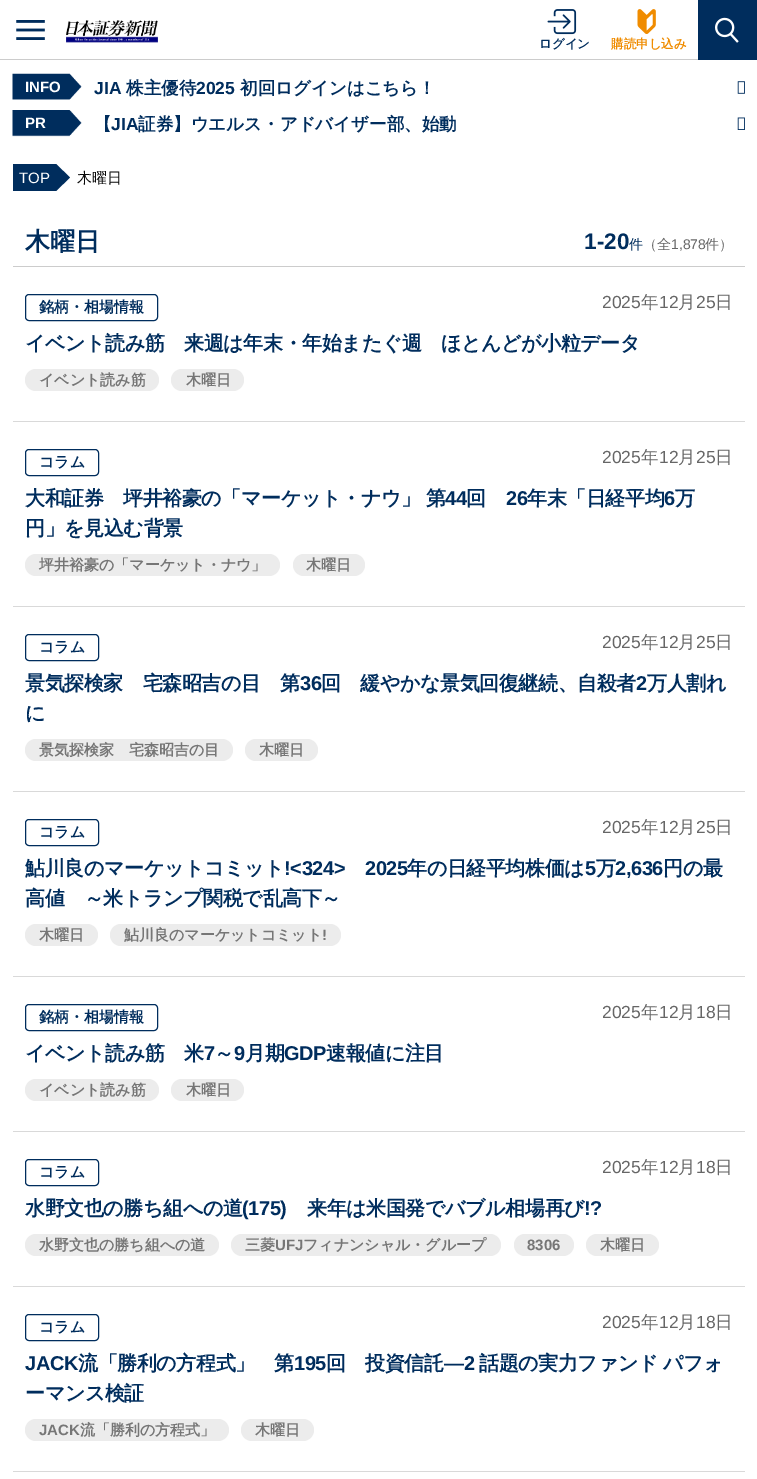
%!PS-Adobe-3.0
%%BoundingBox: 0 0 757 1479
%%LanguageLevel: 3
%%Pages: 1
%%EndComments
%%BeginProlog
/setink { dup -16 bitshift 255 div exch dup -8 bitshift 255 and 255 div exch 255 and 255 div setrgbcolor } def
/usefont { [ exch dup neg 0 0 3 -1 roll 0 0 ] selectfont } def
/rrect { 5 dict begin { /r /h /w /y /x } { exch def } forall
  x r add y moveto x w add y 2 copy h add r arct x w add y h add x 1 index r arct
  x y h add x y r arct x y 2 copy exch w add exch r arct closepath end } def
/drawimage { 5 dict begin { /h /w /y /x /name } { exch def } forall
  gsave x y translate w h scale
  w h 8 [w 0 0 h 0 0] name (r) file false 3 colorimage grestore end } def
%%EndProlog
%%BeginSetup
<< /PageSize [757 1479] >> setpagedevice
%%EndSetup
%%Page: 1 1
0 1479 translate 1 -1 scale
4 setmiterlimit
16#FFFFFF setink
0 0 757 1479 rectfill
16#CCCCCC setink
0 59 698 1 rectfill
(img1.raw) 66 20 92 23 drawimage
(img2.raw) 16 20 29 20 drawimage
(img3.raw) 547 9 30 26 drawimage
/WenQuanYiZenHei-Bold 12.5 usefont
16#002D5D setink
539 48 moveto (ログイン) show
(img4.raw) 637 9 19 25 drawimage
16#F08C00 setink
611 48 moveto (購読申し込み) show
16#002D5D setink
698 0 59 60 rectfill
(img5.raw) 715 17 24 26 drawimage
(img6.raw) 12 73 70 27 drawimage
/LiberationSans-Bold 15 usefont
16#FFFFFF setink
25 92 moveto (INFO) show
/LiberationSans-Bold 17.5 usefont
16#002D5D setink
94 94 moveto (JIA) show
/WenQuanYiZenHei-Bold 17.5 usefont
126 94 moveto (株主優待) show
/LiberationSans-Bold 17.5 usefont
196 94 moveto (2025) show
/WenQuanYiZenHei-Bold 17.5 usefont
240 94 moveto (初回ログインはこちら！) show
(img7.raw) 737 81 8 13 drawimage
(img8.raw) 12 110 70 27 drawimage
/LiberationSans-Bold 15 usefont
16#FFFFFF setink
25 128 moveto (PR) show
/WenQuanYiZenHei-Bold 17.5 usefont
16#002D5D setink
94 130 moveto (【) show
/LiberationSans-Bold 17.5 usefont
111 130 moveto (JIA) show
/WenQuanYiZenHei-Bold 17.5 usefont
138 130 moveto (証券】ウエルス・アドバイザー部、始動) show
(img9.raw) 737 117 8 13 drawimage
13 164 43 27 rectfill
/LiberationSans-Regular 15 usefont
16#FFFFFF setink
19 183 moveto (TOP) show
16#002D5D setink
56 191 moveto 56 164 lineto 70 177.5 lineto closepath fill
/WenQuanYiZenHei-Medium 15 usefont
16#080808 setink
77 183 moveto (木曜日) show
16#CCCCCC setink
13 266 732 1 rectfill
/WenQuanYiZenHei-Bold 25 usefont
16#002D5D setink
25 250 moveto (木曜日) show
/LiberationSans-Bold 22.5 usefont
584 249 moveto (1-20) show
/WenQuanYiZenHei-Medium 14 usefont
629 249 moveto (件) show
16#666666 setink
643 249 moveto (（全) show
/LiberationSans-Regular 14 usefont
671 249 moveto (1,878) show
/WenQuanYiZenHei-Medium 14 usefont
705 249 moveto (件）) show
16#D9D9D9 setink
13 421 732 1 rectfill
16#002D5D setink
25.5 294.5 132 26 3.5 rrect stroke
/WenQuanYiZenHei-Bold 15 usefont
39 312 moveto (銘柄・相場情報) show
/LiberationSans-Regular 17.5 usefont
16#666666 setink
602 308 moveto (2025) show
/WenQuanYiZenHei-Medium 17.5 usefont
641 308 moveto (年) show
/LiberationSans-Regular 17.5 usefont
659 308 moveto (12) show
/WenQuanYiZenHei-Medium 17.5 usefont
678 308 moveto (月) show
/LiberationSans-Regular 17.5 usefont
696 308 moveto (25) show
/WenQuanYiZenHei-Medium 17.5 usefont
715 308 moveto (日) show
/WenQuanYiZenHei-Bold 20 usefont
16#002D5D setink
25 350 moveto -0.4 0 (イベント読み筋　来週は年末・年始またぐ週　ほとんどが小粒データ) ashow
16#ECECEC setink
25 369 134 22 11 rrect fill
/WenQuanYiZenHei-Bold 15 usefont
16#767676 setink
39 385 moveto (イベント読み筋) show
16#ECECEC setink
171 369 73 22 11 rrect fill
16#767676 setink
186 385 moveto (木曜日) show
16#D9D9D9 setink
13 606 732 1 rectfill
16#002D5D setink
25.5 449.5 73 26 3.5 rrect stroke
39 467 moveto (コラム) show
/LiberationSans-Regular 17.5 usefont
16#666666 setink
602 463 moveto (2025) show
/WenQuanYiZenHei-Medium 17.5 usefont
641 463 moveto (年) show
/LiberationSans-Regular 17.5 usefont
659 463 moveto (12) show
/WenQuanYiZenHei-Medium 17.5 usefont
678 463 moveto (月) show
/LiberationSans-Regular 17.5 usefont
696 463 moveto (25) show
/WenQuanYiZenHei-Medium 17.5 usefont
715 463 moveto (日) show
/WenQuanYiZenHei-Bold 20 usefont
16#002D5D setink
25 505 moveto -0.4 0 (大和証券　坪井裕豪の「マーケット・ナウ」 第) ashow
/LiberationSans-Bold 20 usefont
445 505 moveto -0.4 0 (44) ashow
/WenQuanYiZenHei-Bold 20 usefont
466 505 moveto -0.4 0 (回) ashow
/LiberationSans-Bold 20 usefont
506 505 moveto -0.4 0 (26) ashow
/WenQuanYiZenHei-Bold 20 usefont
527 505 moveto -0.4 0 (年末「日経平均) ashow
/LiberationSans-Bold 20 usefont
664 505 moveto -0.4 0 (6) ashow
/WenQuanYiZenHei-Bold 20 usefont
675 505 moveto -0.4 0 (万) ashow
25 535 moveto -0.4 0 (円」を見込む背景) ashow
16#ECECEC setink
25 554 255 22 11 rrect fill
/WenQuanYiZenHei-Bold 15 usefont
16#767676 setink
39 570 moveto (坪井裕豪の「マーケット・ナウ」) show
16#ECECEC setink
293 554 72 22 11 rrect fill
16#767676 setink
306 570 moveto (木曜日) show
16#D9D9D9 setink
13 791 732 1 rectfill
16#002D5D setink
25.5 634.5 73 26 3.5 rrect stroke
39 652 moveto (コラム) show
/LiberationSans-Regular 17.5 usefont
16#666666 setink
602 648 moveto (2025) show
/WenQuanYiZenHei-Medium 17.5 usefont
641 648 moveto (年) show
/LiberationSans-Regular 17.5 usefont
659 648 moveto (12) show
/WenQuanYiZenHei-Medium 17.5 usefont
678 648 moveto (月) show
/LiberationSans-Regular 17.5 usefont
696 648 moveto (25) show
/WenQuanYiZenHei-Medium 17.5 usefont
715 648 moveto (日) show
/WenQuanYiZenHei-Bold 20 usefont
16#002D5D setink
25 690 moveto -0.4 0 (景気探検家　宅森昭吉の目　第) ashow
/LiberationSans-Bold 20 usefont
300 690 moveto -0.4 0 (36) ashow
/WenQuanYiZenHei-Bold 20 usefont
321 690 moveto -0.4 0 (回　緩やかな景気回復継続、自殺者) ashow
/LiberationSans-Bold 20 usefont
636 690 moveto -0.4 0 (2) ashow
/WenQuanYiZenHei-Bold 20 usefont
647 690 moveto -0.4 0 (万人割れ) ashow
25 720 moveto -0.4 0 (に) ashow
16#ECECEC setink
25 739 208 22 11 rrect fill
/WenQuanYiZenHei-Bold 15 usefont
16#767676 setink
39 755 moveto (景気探検家　宅森昭吉の目) show
16#ECECEC setink
245 739 73 22 11 rrect fill
16#767676 setink
259 755 moveto (木曜日) show
16#D9D9D9 setink
13 976 732 1 rectfill
16#002D5D setink
25.5 819.5 73 26 3.5 rrect stroke
39 837 moveto (コラム) show
/LiberationSans-Regular 17.5 usefont
16#666666 setink
602 833 moveto (2025) show
/WenQuanYiZenHei-Medium 17.5 usefont
641 833 moveto (年) show
/LiberationSans-Regular 17.5 usefont
659 833 moveto (12) show
/WenQuanYiZenHei-Medium 17.5 usefont
678 833 moveto (月) show
/LiberationSans-Regular 17.5 usefont
696 833 moveto (25) show
/WenQuanYiZenHei-Medium 17.5 usefont
715 833 moveto (日) show
/WenQuanYiZenHei-Bold 20 usefont
16#002D5D setink
25 875 moveto -0.4 0 (鮎川良のマーケットコミット) ashow
/LiberationSans-Bold 20 usefont
284 875 moveto -0.4 0 (!<324>) ashow
365 875 moveto -0.4 0 (2025) ashow
/WenQuanYiZenHei-Bold 20 usefont
407 875 moveto -0.4 0 (年の日経平均株価は) ashow
/LiberationSans-Bold 20 usefont
585 875 moveto -0.4 0 (5) ashow
/WenQuanYiZenHei-Bold 20 usefont
596 875 moveto -0.4 0 (万) ashow
/LiberationSans-Bold 20 usefont
615 875 moveto -0.4 0 (2,636) ashow
/WenQuanYiZenHei-Bold 20 usefont
663 875 moveto -0.4 0 (円の最) ashow
25 905 moveto -0.4 0 (高値　～米トランプ関税で乱高下～) ashow
16#ECECEC setink
25 924 73 22 11 rrect fill
/WenQuanYiZenHei-Bold 15 usefont
16#767676 setink
39 940 moveto (木曜日) show
16#ECECEC setink
110 924 231 22 11 rrect fill
16#767676 setink
124 940 moveto (鮎川良のマーケットコミット) show
/LiberationSans-Bold 15 usefont
322 940 moveto (!) show
16#D9D9D9 setink
13 1131 732 1 rectfill
16#002D5D setink
25.5 1004.5 132 26 3.5 rrect stroke
/WenQuanYiZenHei-Bold 15 usefont
39 1022 moveto (銘柄・相場情報) show
/LiberationSans-Regular 17.5 usefont
16#666666 setink
602 1018 moveto (2025) show
/WenQuanYiZenHei-Medium 17.5 usefont
641 1018 moveto (年) show
/LiberationSans-Regular 17.5 usefont
659 1018 moveto (12) show
/WenQuanYiZenHei-Medium 17.5 usefont
678 1018 moveto (月) show
/LiberationSans-Regular 17.5 usefont
696 1018 moveto (18) show
/WenQuanYiZenHei-Medium 17.5 usefont
715 1018 moveto (日) show
/WenQuanYiZenHei-Bold 20 usefont
16#002D5D setink
25 1060 moveto -0.4 0 (イベント読み筋　米) ashow
/LiberationSans-Bold 20 usefont
204 1060 moveto -0.4 0 (7) ashow
/WenQuanYiZenHei-Bold 20 usefont
214 1060 moveto -0.4 0 (～) ashow
/LiberationSans-Bold 20 usefont
234 1060 moveto -0.4 0 (9) ashow
/WenQuanYiZenHei-Bold 20 usefont
245 1060 moveto -0.4 0 (月期) ashow
/LiberationSans-Bold 20 usefont
284 1060 moveto -0.4 0 (GDP) ashow
/WenQuanYiZenHei-Bold 20 usefont
326 1060 moveto -0.4 0 (速報値に注目) ashow
16#ECECEC setink
25 1079 134 22 11 rrect fill
/WenQuanYiZenHei-Bold 15 usefont
16#767676 setink
39 1095 moveto (イベント読み筋) show
16#ECECEC setink
171 1079 73 22 11 rrect fill
16#767676 setink
186 1095 moveto (木曜日) show
16#D9D9D9 setink
13 1286 732 1 rectfill
16#002D5D setink
25.5 1159.5 73 26 3.5 rrect stroke
39 1177 moveto (コラム) show
/LiberationSans-Regular 17.5 usefont
16#666666 setink
602 1173 moveto (2025) show
/WenQuanYiZenHei-Medium 17.5 usefont
641 1173 moveto (年) show
/LiberationSans-Regular 17.5 usefont
659 1173 moveto (12) show
/WenQuanYiZenHei-Medium 17.5 usefont
678 1173 moveto (月) show
/LiberationSans-Regular 17.5 usefont
696 1173 moveto (18) show
/WenQuanYiZenHei-Medium 17.5 usefont
715 1173 moveto (日) show
/WenQuanYiZenHei-Bold 20 usefont
16#002D5D setink
25 1215 moveto -0.4 0 (水野文也の勝ち組への道) ashow
/LiberationSans-Bold 20 usefont
242 1215 moveto -0.4 0 (\(175\)) ashow
/WenQuanYiZenHei-Bold 20 usefont
307 1215 moveto -0.4 0 (来年は米国発でバブル相場再び) ashow
/LiberationSans-Bold 20 usefont
584 1215 moveto -0.4 0 (!?) ashow
16#ECECEC setink
25 1234 194 22 11 rrect fill
/WenQuanYiZenHei-Bold 15 usefont
16#767676 setink
39 1250 moveto (水野文也の勝ち組への道) show
16#ECECEC setink
231 1234 270 22 11 rrect fill
16#767676 setink
245 1250 moveto (三菱) show
/LiberationSans-Bold 15 usefont
275 1250 moveto (UFJ) show
/WenQuanYiZenHei-Bold 15 usefont
303 1250 moveto (フィナンシャル・グループ) show
16#ECECEC setink
514 1234 60 22 11 rrect fill
/LiberationSans-Bold 15 usefont
16#767676 setink
527 1250 moveto (8306) show
16#ECECEC setink
586 1234 73 22 11 rrect fill
/WenQuanYiZenHei-Bold 15 usefont
16#767676 setink
600 1250 moveto (木曜日) show
16#D9D9D9 setink
13 1471 732 1 rectfill
16#002D5D setink
25.5 1314.5 73 26 3.5 rrect stroke
39 1332 moveto (コラム) show
/LiberationSans-Regular 17.5 usefont
16#666666 setink
602 1328 moveto (2025) show
/WenQuanYiZenHei-Medium 17.5 usefont
641 1328 moveto (年) show
/LiberationSans-Regular 17.5 usefont
659 1328 moveto (12) show
/WenQuanYiZenHei-Medium 17.5 usefont
678 1328 moveto (月) show
/LiberationSans-Regular 17.5 usefont
696 1328 moveto (18) show
/WenQuanYiZenHei-Medium 17.5 usefont
715 1328 moveto (日) show
/LiberationSans-Bold 20 usefont
16#002D5D setink
25 1370 moveto -0.4 0 (JACK) ashow
/WenQuanYiZenHei-Bold 20 usefont
78 1370 moveto -0.4 0 (流「勝利の方程式」　第) ashow
/LiberationSans-Bold 20 usefont
294 1370 moveto -0.4 0 (195) ashow
/WenQuanYiZenHei-Bold 20 usefont
326 1370 moveto -0.4 0 (回　投資信託) ashow
/LiberationSans-Bold 20 usefont
444 1370 moveto -0.4 0 (―2) ashow
/WenQuanYiZenHei-Bold 20 usefont
479 1370 moveto -0.4 0 (話題の実力ファンド パフォ) ashow
25 1400 moveto -0.4 0 (ーマンス検証) ashow
16#ECECEC setink
25 1419 204 22 11 rrect fill
/LiberationSans-Bold 15 usefont
16#767676 setink
39 1435 moveto (JACK) show
/WenQuanYiZenHei-Bold 15 usefont
80 1435 moveto (流「勝利の方程式」) show
16#ECECEC setink
241 1419 73 22 11 rrect fill
16#767676 setink
255 1435 moveto (木曜日) show
showpage
%%EOF
